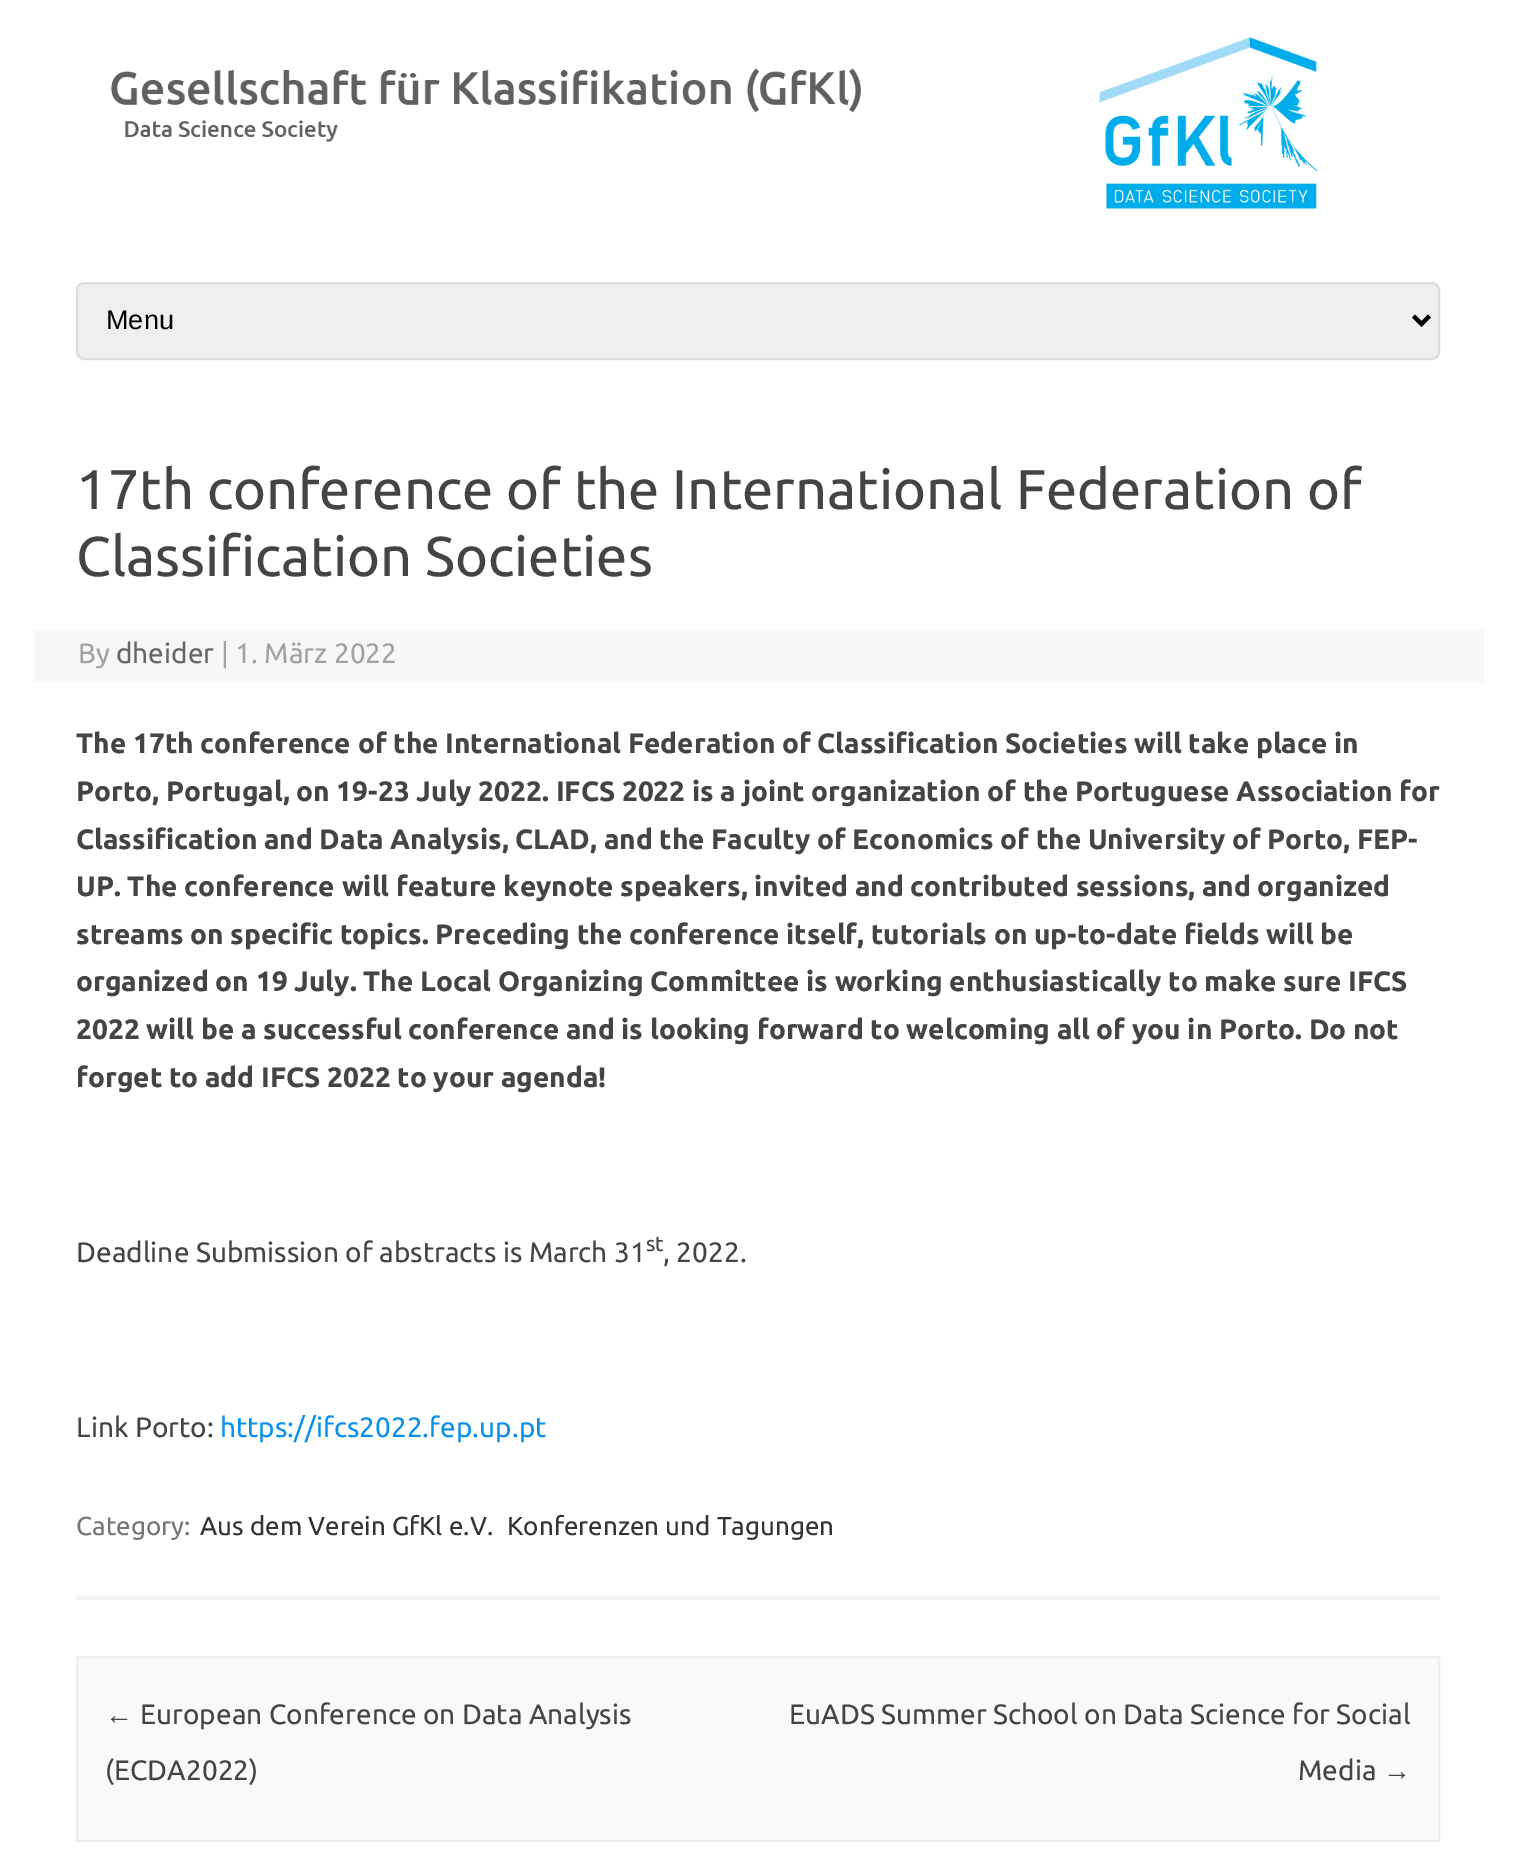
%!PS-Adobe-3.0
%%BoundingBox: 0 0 1515 1855
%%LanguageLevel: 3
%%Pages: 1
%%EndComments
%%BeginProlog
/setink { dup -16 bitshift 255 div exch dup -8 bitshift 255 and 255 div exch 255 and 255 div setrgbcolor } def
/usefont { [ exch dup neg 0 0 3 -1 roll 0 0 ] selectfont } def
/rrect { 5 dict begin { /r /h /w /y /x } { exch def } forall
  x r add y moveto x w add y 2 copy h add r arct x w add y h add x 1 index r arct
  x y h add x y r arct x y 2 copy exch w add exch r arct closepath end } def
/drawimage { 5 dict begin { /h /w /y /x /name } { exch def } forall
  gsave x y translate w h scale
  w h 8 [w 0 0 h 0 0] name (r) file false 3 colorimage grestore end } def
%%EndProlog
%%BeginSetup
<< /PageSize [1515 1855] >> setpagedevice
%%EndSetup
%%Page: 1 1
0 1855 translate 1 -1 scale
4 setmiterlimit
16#FFFFFF setink
0 0 1515 1855 rectfill
(img1.raw) 111 37 1207 173 drawimage
16#EFEFEF setink
77 283 1362 76 7 rrect gsave fill grestore
16#DDDDDD setink
2 setlinewidth
stroke
16#000000 setink
4 setlinewidth
1413.5 316 moveto 1421.5 324 lineto 1429.5 316 lineto stroke
/LiberationSans-Regular 27 usefont
106 329 moveto (Menu) show
16#F3F3F3 setink
76 1596 1364 4 rectfill
/Ubuntu-Regular 56 usefont
16#444444 setink
76 509 moveto (17th conference of the International Federation of) show
76 576 moveto (Classification Societies) show
16#F7F7F7 setink
34 630 1450 52 rectfill
/Ubuntu-Regular 28 usefont
16#A2A2A2 setink
78 663 moveto (By) show
16#666666 setink
116 663 moveto (dheider) show
16#A2A2A2 setink
221 663 moveto (| 1. März 2022) show
/Ubuntu-Bold 28 usefont
16#444444 setink
[
    [(The 17th conference of the International Federation of Classification Societies will take place in) 76 753]
    [(Porto, Portugal, on 19-23 July 2022. IFCS 2022 is a joint organization of the Portuguese Association for) 76 801]
    [(Classification and Data Analysis, CLAD, and the Faculty of Economics of the University of Porto, FEP-) 76 849]
    [(UP. The conference will feature keynote speakers, invited and contributed sessions, and organized) 76 896]
    [(streams on specific topics. Preceding the conference itself, tutorials on up-to-date fields will be) 76 944]
    [(organized on 19 July. The Local Organizing Committee is working enthusiastically to make sure IFCS) 76 991]
    [(2022 will be a successful conference and is looking forward to welcoming all of you in Porto. Do not) 76 1039]
    [(forget to add IFCS 2022 to your agenda!) 76 1087]
] { aload pop moveto show } forall
/Ubuntu-Regular 28 usefont
76 1262 moveto (Deadline Submission of abstracts is March 31) show
/Ubuntu-Regular 21 usefont
646 1251 moveto (st) show
/Ubuntu-Regular 28 usefont
663 1262 moveto (, 2022.) show
76 1437 moveto (Link Porto:) show
16#0B91EA setink
220 1437 moveto (https://ifcs2022.fep.up.pt) show
/Ubuntu-Regular 26 usefont
16#757575 setink
76 1535 moveto (Category:) show
16#333333 setink
200 1535 moveto (Aus dem Verein GfKl e.V.) show
507 1535 moveto (Konferenzen und Tagungen) show
16#F9F9F9 setink
77 1657 moveto 1439 1657 lineto 1439 1841 lineto 77 1841 lineto closepath gsave fill grestore
16#EDEDED setink
2 setlinewidth
stroke
/LiberationSans-Regular 28 usefont
16#444444 setink
105 1724 moveto (←) show
/Ubuntu-Regular 28 usefont
[
    [(European Conference on Data Analysis) 140 1724]
    [(\(ECDA2022\)) 105 1780]
    [(EuADS Summer School on Data Science for Social) 789 1724]
    [(Media) 1298 1780]
] { aload pop moveto show } forall
/LiberationSans-Regular 28 usefont
1383 1780 moveto (→) show
showpage
%%EOF
